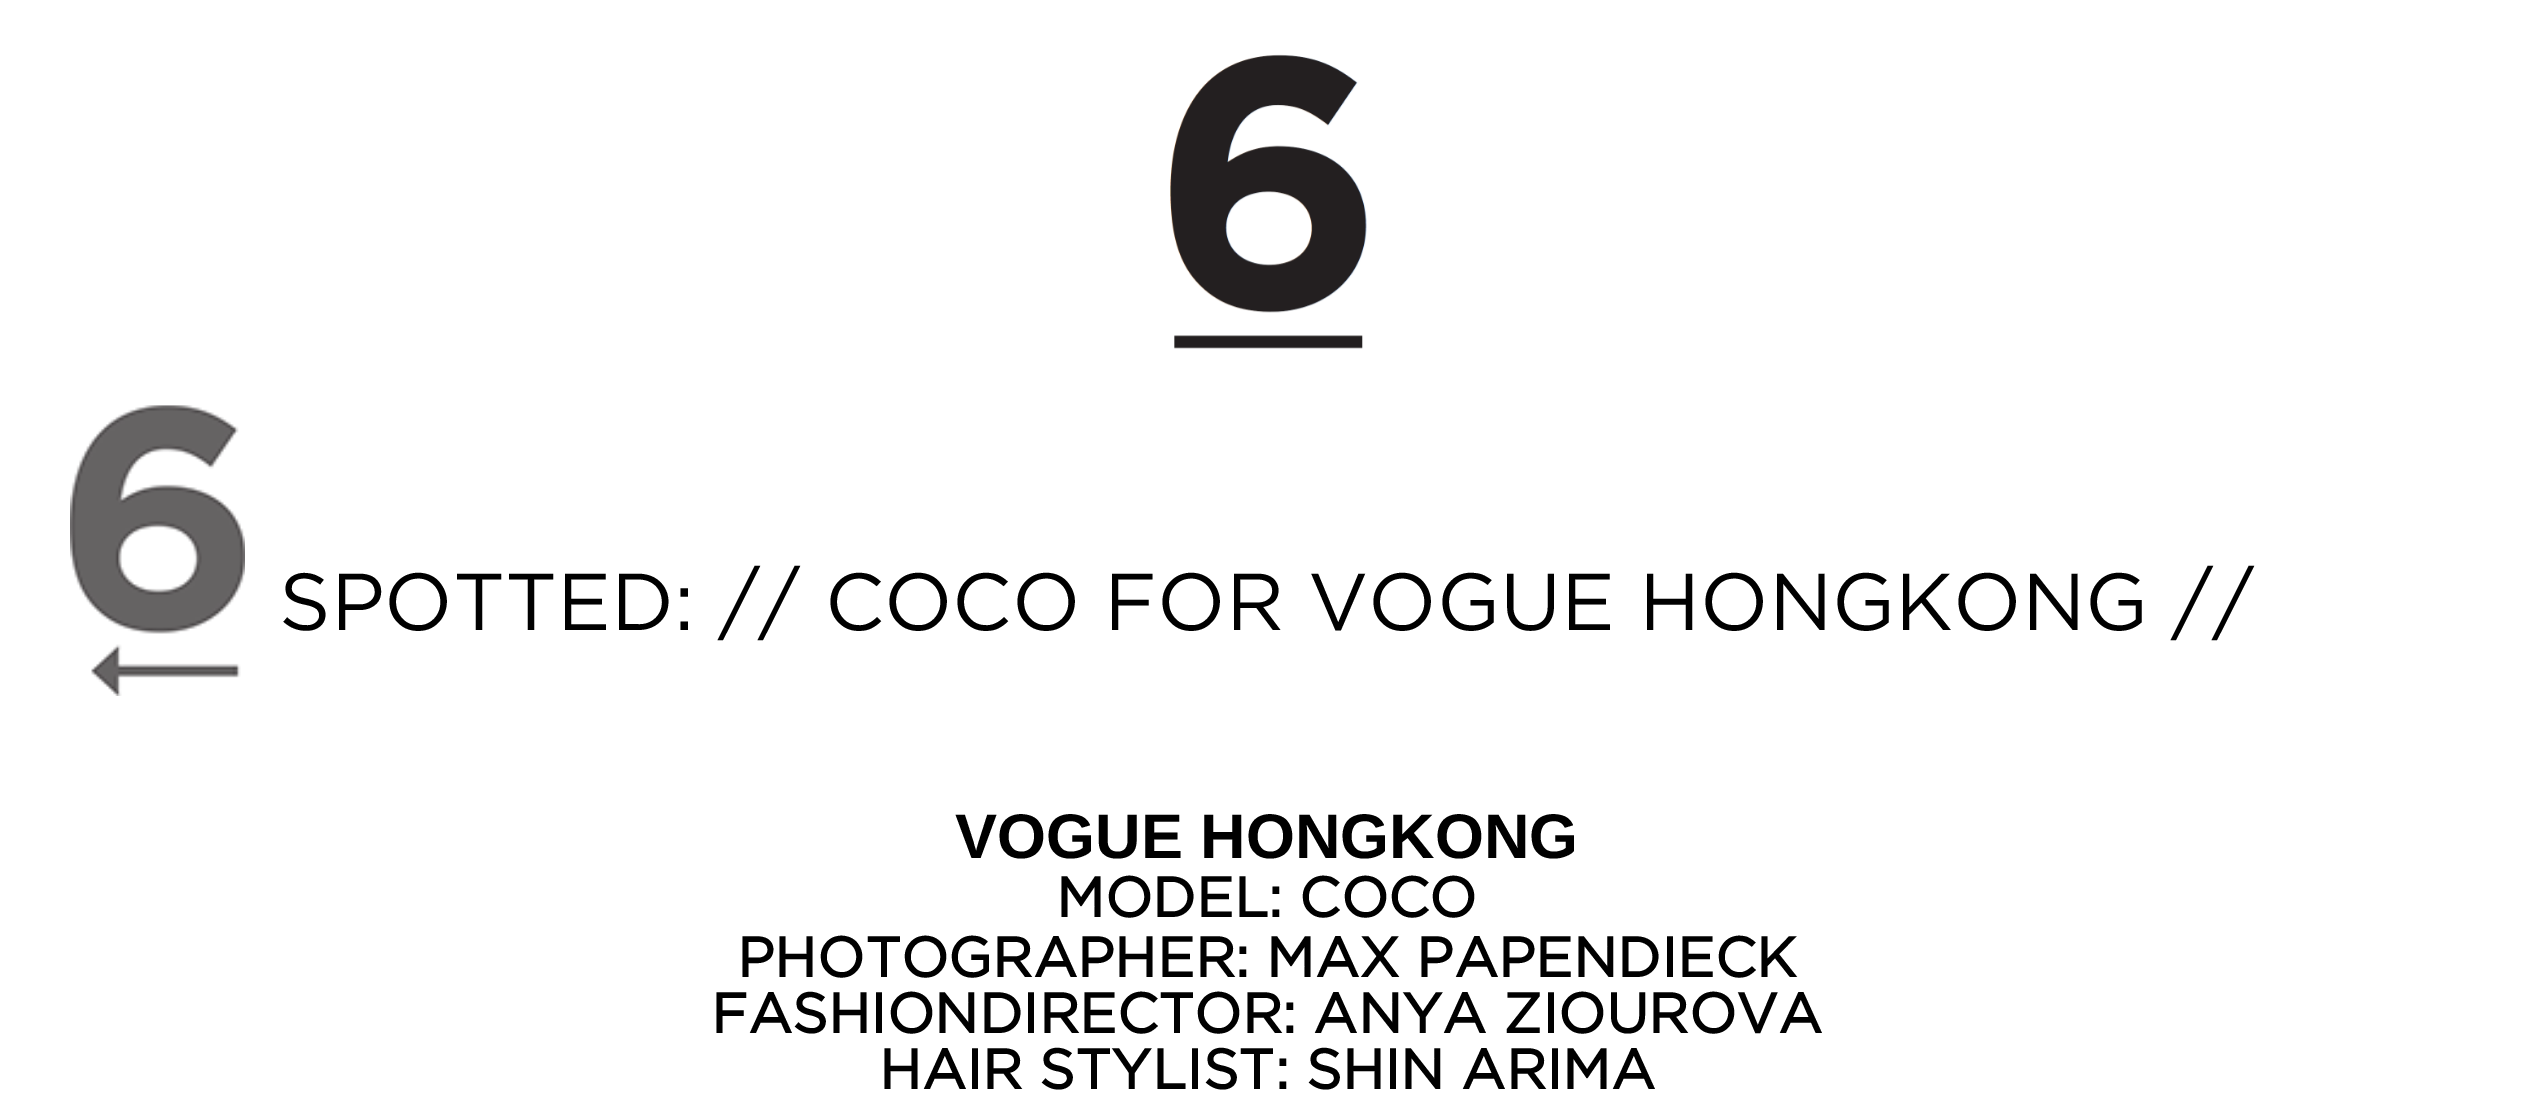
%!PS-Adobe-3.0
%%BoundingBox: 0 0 2533 1109
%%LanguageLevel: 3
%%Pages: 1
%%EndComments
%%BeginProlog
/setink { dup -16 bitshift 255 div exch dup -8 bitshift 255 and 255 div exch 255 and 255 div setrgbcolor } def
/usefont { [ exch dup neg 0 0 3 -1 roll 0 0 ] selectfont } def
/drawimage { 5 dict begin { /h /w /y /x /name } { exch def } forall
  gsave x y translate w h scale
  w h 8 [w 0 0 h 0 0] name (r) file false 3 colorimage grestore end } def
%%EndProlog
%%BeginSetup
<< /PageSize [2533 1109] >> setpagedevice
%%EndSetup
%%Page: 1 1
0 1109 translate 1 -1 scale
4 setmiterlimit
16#FFFFFF setink
0 0 2533 1109 rectfill
(img1.raw) 1170 54 197 295 drawimage
(img2.raw) 70 405 175 291 drawimage
/Gotham-Regular 80.5 usefont
16#000000 setink
279 630 moveto (SPOTTED: // COCO FOR VOGUE HONGKONG //) show
/LiberationSans-Bold 63 usefont
955 858 moveto (VOGUE HONGKONG) show
/Gotham-Bold 56 usefont
[
    [(MODEL: COCO) 1056 917]
    [(PHOTOGRAPHER: MAX PAPENDIECK) 737 977]
    [(FASHIONDIRECTOR: ANYA ZIOUROVA) 711 1033]
    [(HAIR STYLIST: SHIN ARIMA) 879 1089]
] { aload pop moveto show } forall
showpage
%%EOF
